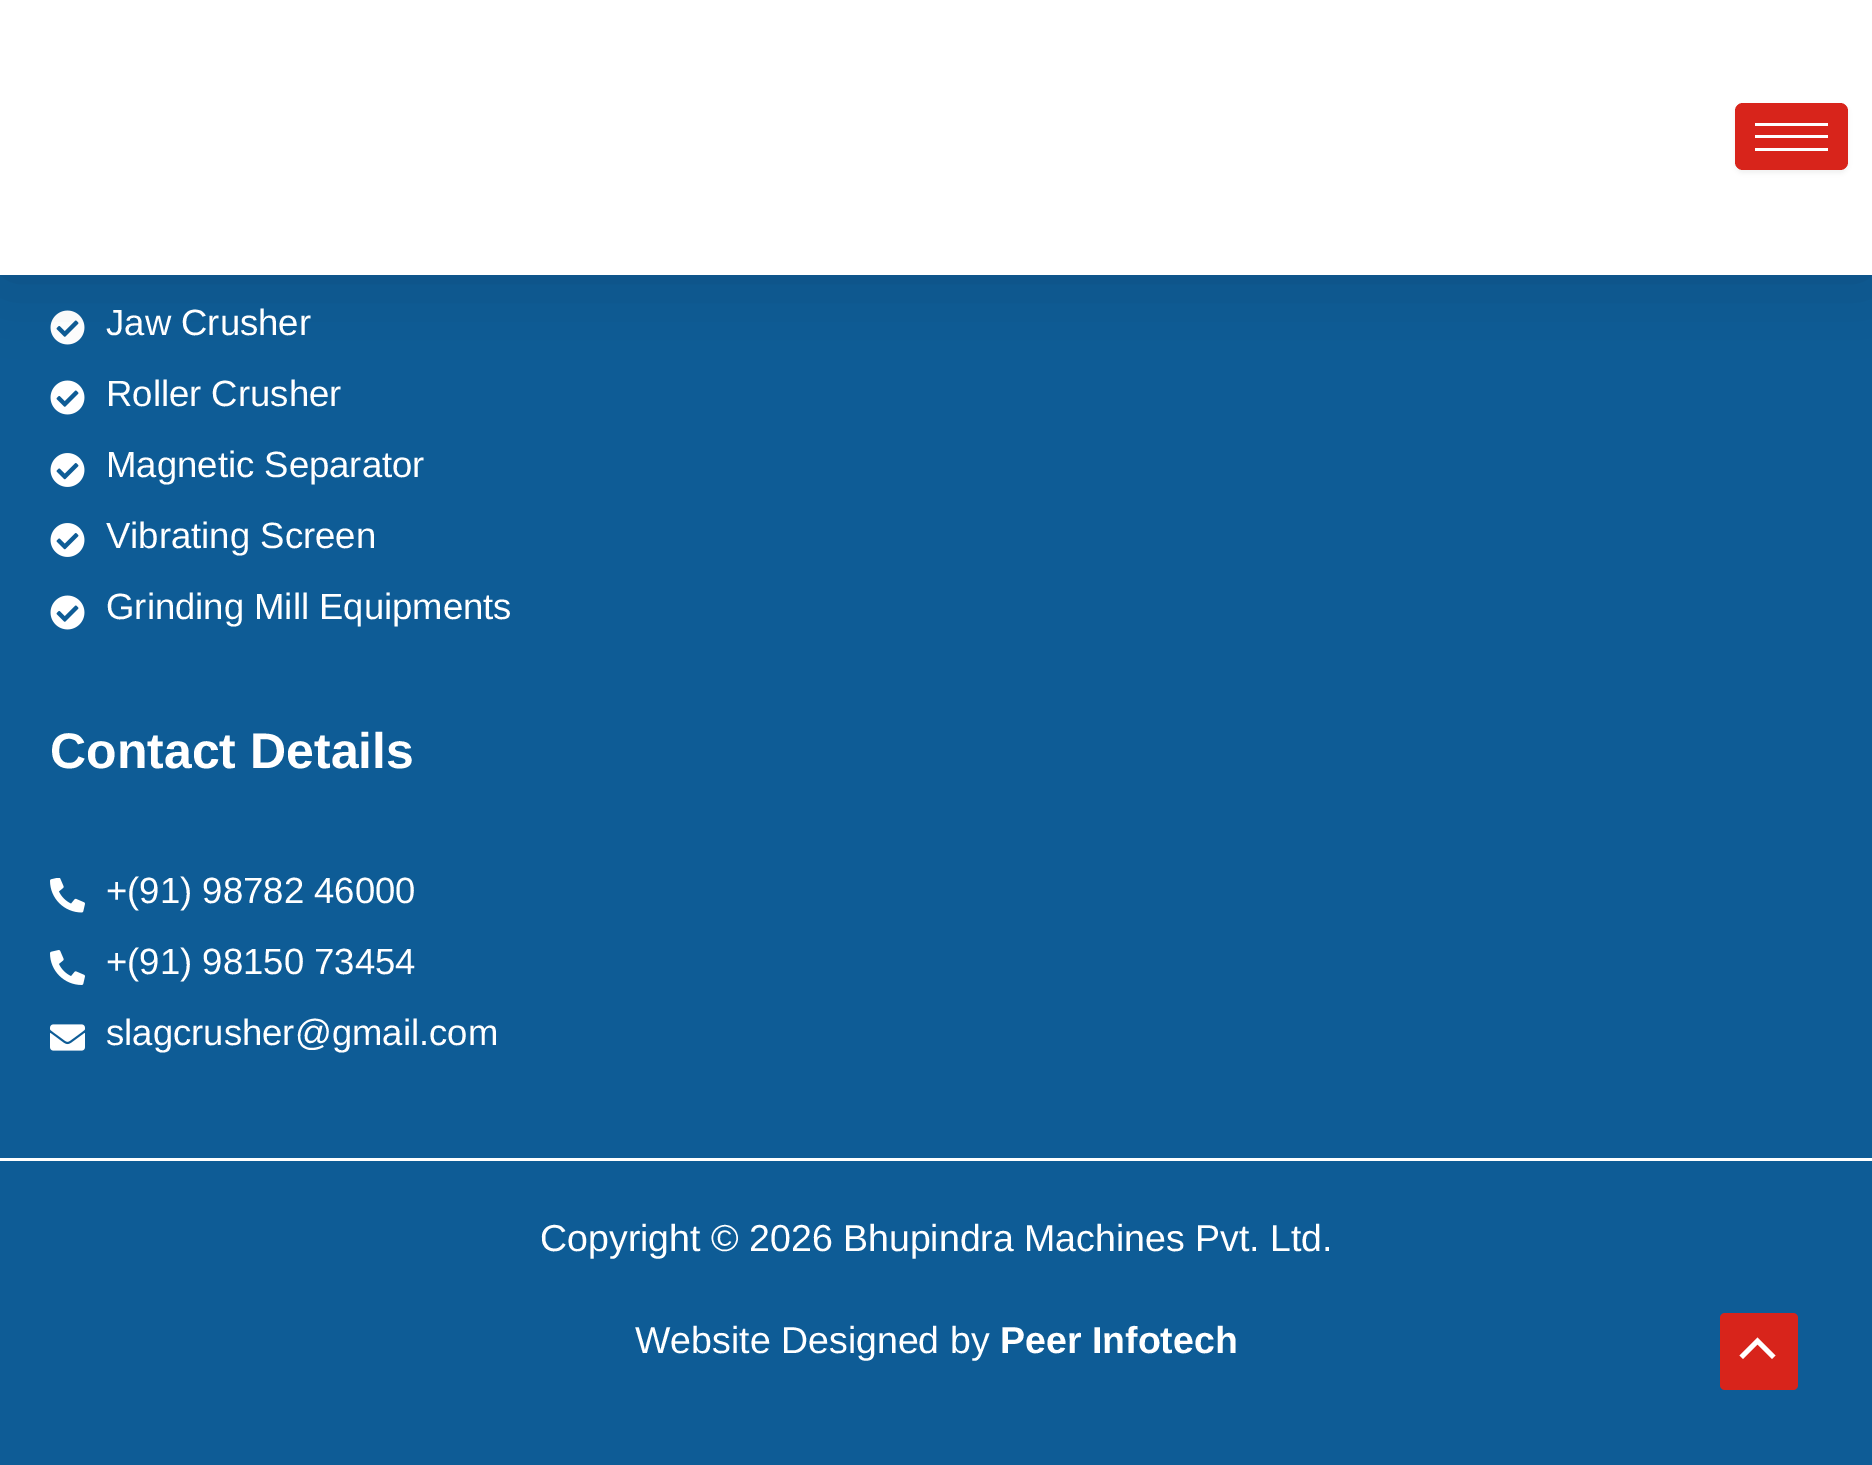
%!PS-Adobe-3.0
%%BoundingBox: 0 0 1872 1465
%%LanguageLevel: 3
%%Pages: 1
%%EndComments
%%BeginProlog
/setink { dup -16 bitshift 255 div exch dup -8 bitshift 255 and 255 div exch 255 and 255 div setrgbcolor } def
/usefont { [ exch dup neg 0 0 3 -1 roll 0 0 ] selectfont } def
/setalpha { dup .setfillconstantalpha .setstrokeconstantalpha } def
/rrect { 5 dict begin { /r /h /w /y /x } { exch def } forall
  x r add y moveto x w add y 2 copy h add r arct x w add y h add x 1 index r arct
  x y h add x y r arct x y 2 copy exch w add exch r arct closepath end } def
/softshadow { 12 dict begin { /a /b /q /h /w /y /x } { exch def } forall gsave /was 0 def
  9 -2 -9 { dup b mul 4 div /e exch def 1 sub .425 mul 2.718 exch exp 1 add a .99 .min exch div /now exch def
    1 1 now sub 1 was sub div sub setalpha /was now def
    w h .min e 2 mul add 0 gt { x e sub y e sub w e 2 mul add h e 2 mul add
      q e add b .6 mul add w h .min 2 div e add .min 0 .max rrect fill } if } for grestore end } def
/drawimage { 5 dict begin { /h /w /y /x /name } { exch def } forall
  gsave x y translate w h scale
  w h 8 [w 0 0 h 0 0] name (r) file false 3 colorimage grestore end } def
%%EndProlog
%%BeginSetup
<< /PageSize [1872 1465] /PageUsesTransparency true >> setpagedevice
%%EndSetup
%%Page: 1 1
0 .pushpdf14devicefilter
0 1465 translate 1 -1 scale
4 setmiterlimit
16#0E5C96 setink
0 0 1872 1465 rectfill
(img1.raw) 50 310 35 35 drawimage
(img1.raw) 50 380 35 35 drawimage
16#000000 setink
0 0 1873 275 0 37.5 0.15 softshadow
16#FFFFFF setink
0 0 1872 275 rectfill
16#000000 setink
1735 105 113 68 8 2.5 0.05 softshadow
16#D8241B setink
1735 103 113 67 8 rrect fill
[
    [1755 123 73 3 16#FFFFFF]
    [1755 135 73 3 16#FFFFFF]
    [1755 148 73 3 16#FFFFFF]
] { aload pop setink rectfill } forall
/LiberationSans-Regular 36.5 usefont
106 335 moveto (Jaw Crusher) show
106 406 moveto (Roller Crusher) show
(img2.raw) 50 453 35 34 drawimage
106 477 moveto (Magnetic Separator) show
(img2.raw) 50 523 35 34 drawimage
106 548 moveto (Vibrating Screen) show
(img1.raw) 50 595 35 35 drawimage
106 619 moveto (Grinding Mill Equipments) show
/LiberationSans-Bold 50 usefont
50 768 moveto (Contact Details) show
(img3.raw) 50 878 35 35 drawimage
/LiberationSans-Regular 36.5 usefont
106 903 moveto (+\(91\) 98782 46000) show
(img4.raw) 50 950 35 35 drawimage
106 974 moveto (+\(91\) 98150 73454) show
(img5.raw) 50 1024 35 27 drawimage
106 1045 moveto (slagcrusher@gmail.com) show
0 1158 1872 3 rectfill
/LiberationSans-Regular 37.5 usefont
540 1251 moveto (Copyright © 2026 Bhupindra Machines Pvt. Ltd.) show
635 1353 moveto (Website Designed by) show
/LiberationSans-Bold 37.5 usefont
1000 1353 moveto (Peer Infotech) show
16#D8241B setink
1720 1313 78 77 5 rrect fill
16#FFFFFF setink
1775.5 1355.5 moveto 1757.5 1337.5 lineto 1739.5 1355.5 lineto 1743 1359 lineto 1757.5 1344.5 lineto 1772 1359 lineto closepath fill
.poppdf14devicefilter showpage
%%EOF
